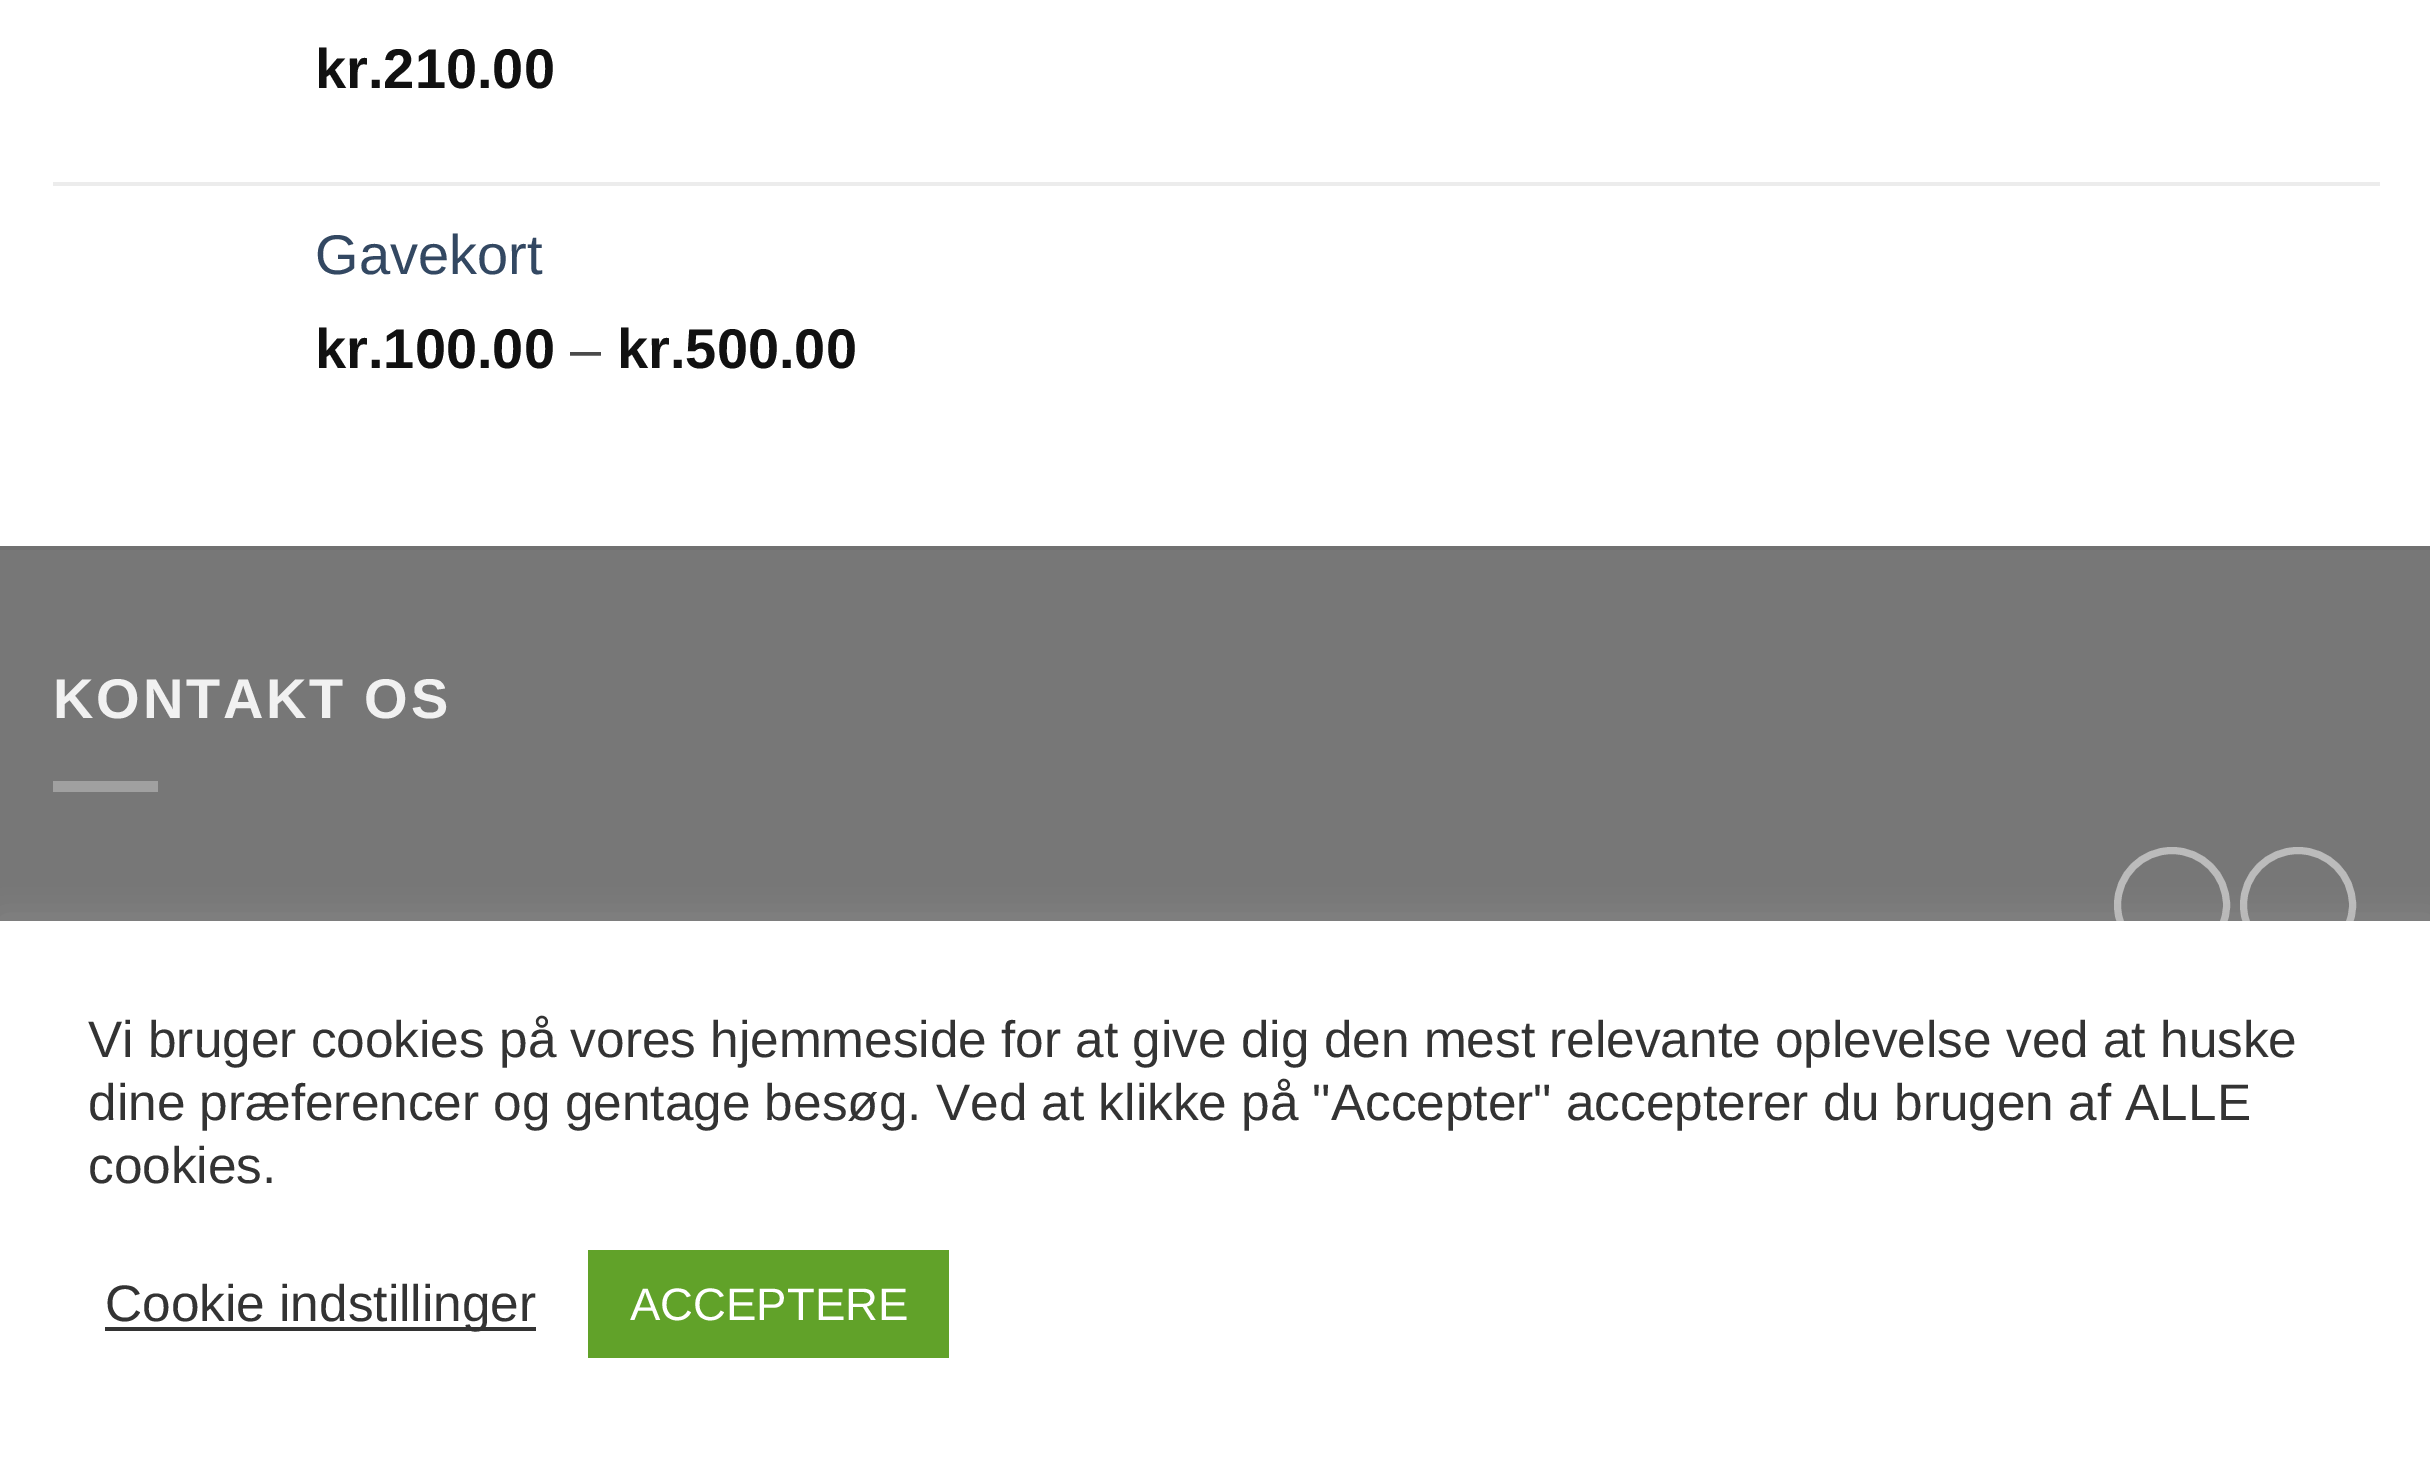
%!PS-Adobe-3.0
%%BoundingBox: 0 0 2430 1460
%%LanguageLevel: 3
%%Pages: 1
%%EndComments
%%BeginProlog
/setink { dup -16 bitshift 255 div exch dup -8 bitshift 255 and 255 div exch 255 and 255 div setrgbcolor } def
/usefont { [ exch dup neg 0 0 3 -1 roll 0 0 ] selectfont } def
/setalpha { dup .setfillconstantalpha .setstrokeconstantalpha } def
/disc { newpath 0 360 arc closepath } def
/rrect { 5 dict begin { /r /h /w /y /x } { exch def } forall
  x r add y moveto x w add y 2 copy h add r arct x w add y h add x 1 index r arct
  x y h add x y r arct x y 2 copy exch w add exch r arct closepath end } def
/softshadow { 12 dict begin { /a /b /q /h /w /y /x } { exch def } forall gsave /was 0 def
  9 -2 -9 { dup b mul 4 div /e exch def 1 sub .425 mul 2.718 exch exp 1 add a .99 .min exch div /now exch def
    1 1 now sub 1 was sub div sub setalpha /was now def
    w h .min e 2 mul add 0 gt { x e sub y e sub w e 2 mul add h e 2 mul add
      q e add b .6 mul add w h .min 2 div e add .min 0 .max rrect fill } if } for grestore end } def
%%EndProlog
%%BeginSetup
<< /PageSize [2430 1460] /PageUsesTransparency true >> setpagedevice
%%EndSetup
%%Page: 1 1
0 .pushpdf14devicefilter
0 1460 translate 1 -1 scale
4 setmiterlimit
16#FFFFFF setink
0 0 2430 1460 rectfill
/LiberationSans-Bold 56 usefont
16#111111 setink
315 88 moveto (kr.210.00) show
16#ECECEC setink
53 182 2327 4 rectfill
/LiberationSans-Regular 56 usefont
16#334862 setink
315 274 moveto (Gavekort) show
/LiberationSans-Bold 56 usefont
16#111111 setink
315 368 moveto (kr.100.00) show
/LiberationSans-Regular 56 usefont
16#4A4A4A setink
570 368 moveto (–) show
/LiberationSans-Bold 56 usefont
16#111111 setink
617 368 moveto (kr.500.00) show
16#777777 setink
0 550 2430 371 rectfill
16#717171 setink
0 546 2430 4 rectfill
16#F1F1F1 setink
53 718 moveto 2.75 0 (KONTAKT OS) ashow
16#A0A0A0 setink
53 781 105 11 rectfill
16#BBBBBB setink
7 setlinewidth
2172 905 54.5 disc stroke
2298 905 54.5 disc stroke
16#ACABAB setink
0 917 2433 543 0 17.5 0.3 softshadow
16#FFFFFF setink
0 921 2430 539 rectfill
/LiberationSans-Regular 51.35 usefont
16#333333 setink
[
    [(Vi bruger cookies på vores hjemmeside for at give dig den mest relevante oplevelse ved at huske) 88 1057]
    [(dine præferencer og gentage besøg. Ved at klikke på "Accepter" accepterer du brugen af ALLE) 88 1120]
    [(cookies.) 88 1183]
] { aload pop moveto show } forall
105 1327 431 4 rectfill
105 1321 moveto (Cookie indstillinger) show
16#61A229 setink
588 1250 361 108 rectfill
/LiberationSans-Regular 45.5 usefont
16#FFFFFF setink
630 1320 moveto (ACCEPTERE) show
.poppdf14devicefilter showpage
%%EOF
